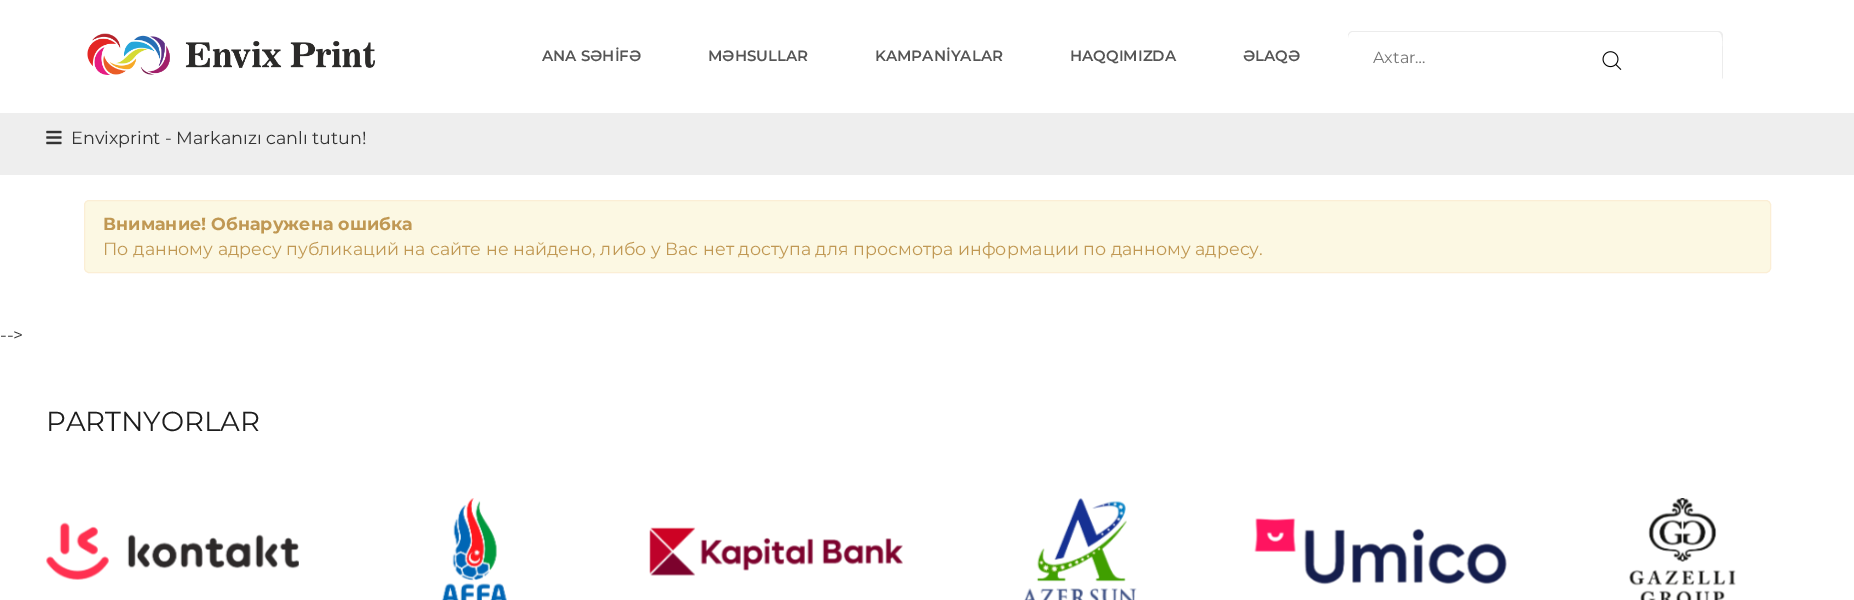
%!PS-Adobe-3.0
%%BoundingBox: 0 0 1854 600
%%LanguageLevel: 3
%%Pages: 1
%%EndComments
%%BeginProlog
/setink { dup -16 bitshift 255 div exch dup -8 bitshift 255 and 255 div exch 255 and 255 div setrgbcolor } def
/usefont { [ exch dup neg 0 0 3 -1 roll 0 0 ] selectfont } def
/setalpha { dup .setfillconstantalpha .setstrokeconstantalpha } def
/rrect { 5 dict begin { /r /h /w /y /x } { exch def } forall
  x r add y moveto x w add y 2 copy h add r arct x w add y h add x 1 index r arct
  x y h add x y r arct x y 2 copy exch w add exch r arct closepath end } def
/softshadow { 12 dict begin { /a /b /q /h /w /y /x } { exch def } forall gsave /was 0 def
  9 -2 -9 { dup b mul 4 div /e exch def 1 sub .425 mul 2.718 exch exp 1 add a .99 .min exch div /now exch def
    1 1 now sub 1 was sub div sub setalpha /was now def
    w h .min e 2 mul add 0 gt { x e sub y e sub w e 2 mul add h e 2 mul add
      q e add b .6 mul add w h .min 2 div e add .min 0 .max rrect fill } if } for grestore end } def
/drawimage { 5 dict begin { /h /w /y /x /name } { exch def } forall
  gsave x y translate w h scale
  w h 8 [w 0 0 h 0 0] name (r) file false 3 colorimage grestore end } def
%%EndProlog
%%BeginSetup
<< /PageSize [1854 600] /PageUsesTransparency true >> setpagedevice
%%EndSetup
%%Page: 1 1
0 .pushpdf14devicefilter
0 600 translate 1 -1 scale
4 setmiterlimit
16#FFFFFF setink
0 0 1854 600 rectfill
gsave
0 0 moveto 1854 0 lineto 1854 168 lineto 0 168 lineto closepath 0 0 moveto 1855 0 lineto 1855 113 lineto 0 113 lineto closepath eoclip newpath
16#222533 setink
21 26 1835 93 0 16 1 softshadow
grestore
0.5 setalpha
1 112 1853 1 rectfill
9 112 1845 1 rectfill
1 setalpha
(img1.raw) 87 33 288 42 drawimage
/Montserrat-SemiBold 15 usefont
16#555555 setink
[
    [(ANA SƏHİFƏ) 542 61]
    [(MƏHSULLAR) 708 61]
    [(KAMPANİYALAR) 875 61]
    [(HAQQIMIZDA) 1070 61]
    [(ƏLAQƏ) 1243 61]
] { aload pop moveto show } forall
16#ECECEC setink
1352 32 moveto 1718 32 lineto 1724 32 1722 49 1722 51 curveto 1722 79 lineto 1723 78 1723 77 1723 76 curveto 1723 36 lineto 1723 33 1721 31 1718 31 curveto 1353 31 lineto 1350 31 1348 33 1348 36 curveto 1348 38 lineto 1348 35 1350 32 1352 32 curveto closepath fill
/Montserrat-Regular 16 usefont
16#757575 setink
1373 63 moveto (Axtar…) show
(img2.raw) 1602 51 20 19 drawimage
16#EEEEEE setink
0 113 1854 62 rectfill
(img3.raw) 46 130 16 15 drawimage
/Montserrat-Regular 17.5 usefont
16#333333 setink
71 144 moveto (Envixprint - Markanızı canlı tutun!) show
16#FCF8E3 setink
84.5 200.5 1686 72 4.5 rrect gsave fill grestore
16#FBEED5 setink
stroke
/Montserrat-Bold 17.5 usefont
16#C09853 setink
103 230 moveto (Внимание! Обнаружена ошибка) show
/Montserrat-Regular 17.5 usefont
103 255 moveto (По данному адресу публикаций на сайте не найдено, либо у Вас нет доступа для просмотра информации по данному адресу.) show
16#333333 setink
0 341 moveto (-->) show
/Montserrat-Regular 27.5 usefont
16#1D1D1D setink
46 431 moveto (PARTNYORLAR) show
(img4.raw) 46 522 253 58 drawimage
(img5.raw) 441 498 66 102 drawimage
(img6.raw) 649 527 254 49 drawimage
(img7.raw) 1024 498 113 102 drawimage
(img8.raw) 1254 518 253 67 drawimage
(img9.raw) 1629 498 107 102 drawimage
.poppdf14devicefilter showpage
%%EOF
